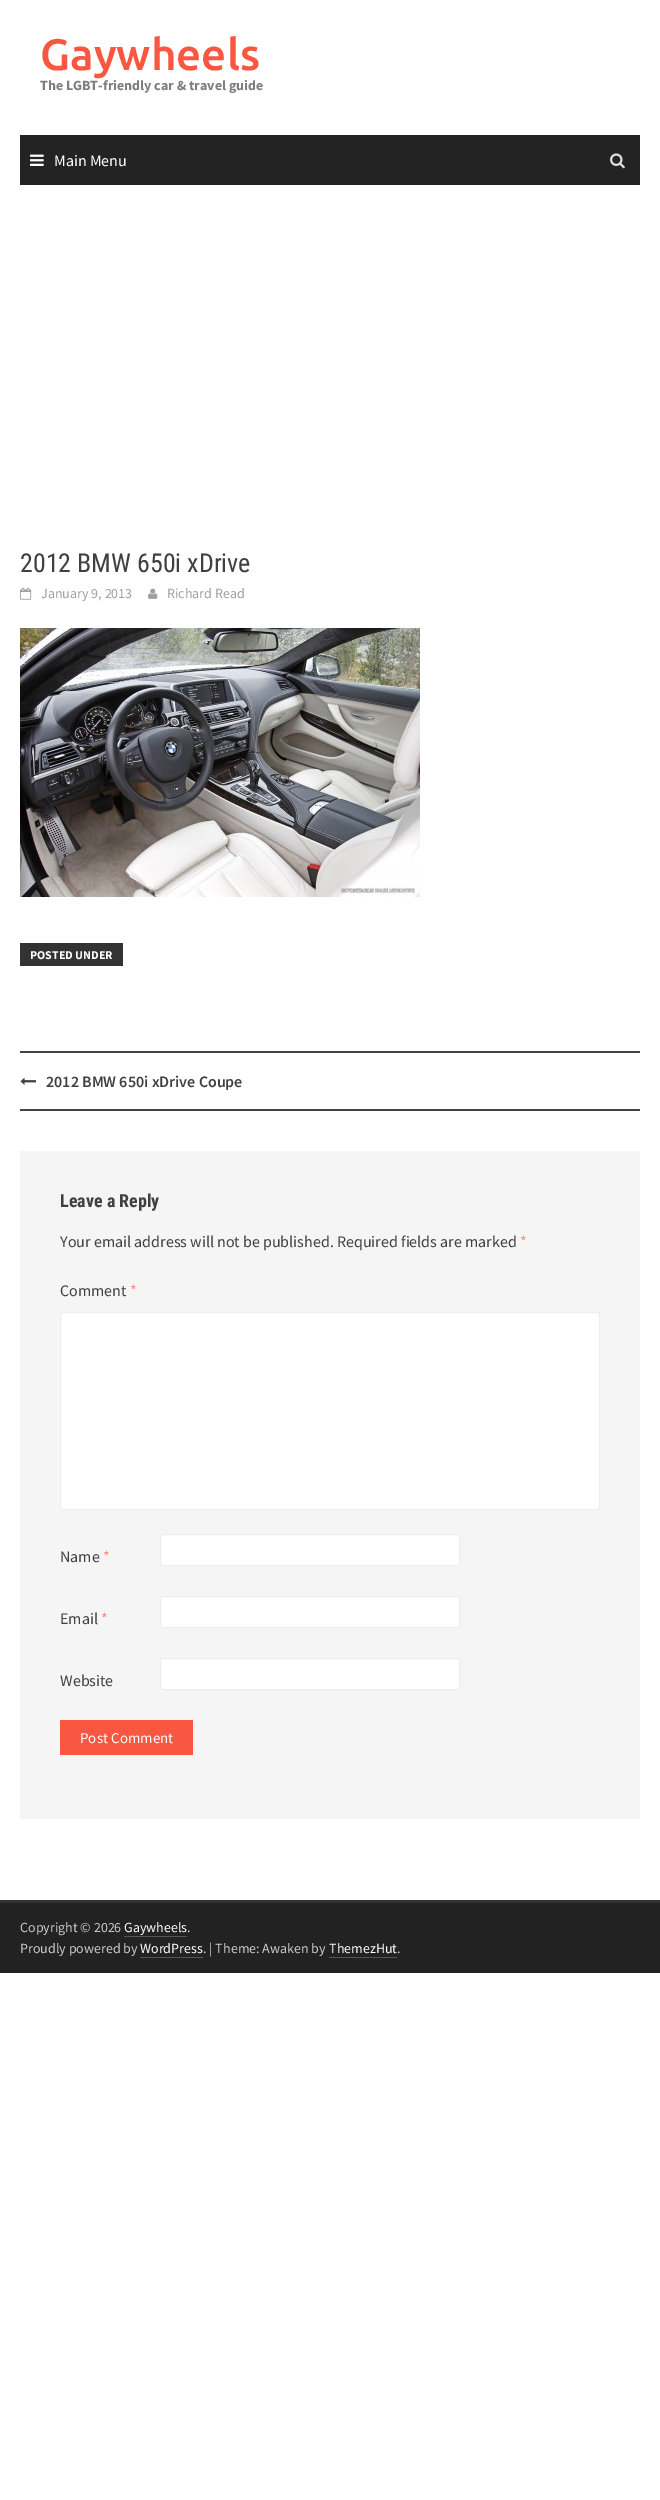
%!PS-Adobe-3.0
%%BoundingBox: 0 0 660 2500
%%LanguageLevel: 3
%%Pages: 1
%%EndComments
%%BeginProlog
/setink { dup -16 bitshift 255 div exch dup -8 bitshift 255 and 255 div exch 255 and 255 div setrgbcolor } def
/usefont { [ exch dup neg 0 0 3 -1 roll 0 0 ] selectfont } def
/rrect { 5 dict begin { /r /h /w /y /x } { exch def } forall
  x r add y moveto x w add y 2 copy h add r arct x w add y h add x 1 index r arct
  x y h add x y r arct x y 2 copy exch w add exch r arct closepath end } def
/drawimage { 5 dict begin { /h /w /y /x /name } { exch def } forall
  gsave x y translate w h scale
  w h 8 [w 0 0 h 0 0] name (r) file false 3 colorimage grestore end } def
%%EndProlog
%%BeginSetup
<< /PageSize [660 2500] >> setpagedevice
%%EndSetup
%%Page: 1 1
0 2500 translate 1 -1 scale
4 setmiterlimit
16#FFFFFF setink
0 0 660 2500 rectfill
/Ubuntu-Medium 44 usefont
16#FA5742 setink
40 70 moveto (Gaywheels) show
/SourceSansPro-Bold 14 usefont
16#7E7E7E setink
40 90 moveto (The LGBT-friendly car & travel guide) show
16#232323 setink
20 135 620 50 rectfill
(img1.raw) 30 154 14 12 drawimage
/SourceSansPro-Regular 16 usefont
16#FFFFFF setink
54 166 moveto (Main Menu) show
(img2.raw) 610 153 15 16 drawimage
/RobotoCondensed-Regular 26 usefont
16#404040 setink
20 572 moveto (2012 BMW 650i xDrive) show
(img3.raw) 20 587 12 13 drawimage
/SourceSansPro-Regular 14 usefont
16#9F9F9F setink
41 598 moveto (January 9, 2013) show
(img4.raw) 148 588 10 11 drawimage
167 598 moveto (Richard Read) show
(img5.raw) 20 628 400 269 drawimage
16#333333 setink
20 943 103 23 rectfill
/SourceSansPro-Bold 12 usefont
16#FFFFFF setink
30 959 moveto (POSTED UNDER) show
16#444444 setink
20 1051 620 2 rectfill
20 1109 620 2 rectfill
(img6.raw) 20 1077 16 8 drawimage
/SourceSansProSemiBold-SemiBold 16 usefont
16#404040 setink
46 1087 moveto (2012 BMW 650i xDrive Coupe) show
16#F5F5F5 setink
20 1151 620 668 rectfill
/RobotoCondensed-Bold 18 usefont
16#404040 setink
60 1207 moveto (Leave a Reply) show
/SourceSansPro-Regular 16 usefont
60 1247 moveto (Your email address will not be published. Required fields are marked) show
16#FF8778 setink
520 1247 moveto (*) show
16#404040 setink
60 1296 moveto (Comment) show
16#FF8778 setink
130 1296 moveto (*) show
16#FFFFFF setink
60.5 1312.5 539 197 2.5 rrect gsave fill grestore
16#EEEEEE setink
stroke
16#404040 setink
60 1562 moveto (Name) show
16#FF8778 setink
103 1562 moveto (*) show
16#FFFFFF setink
160.5 1534.5 299 31 2.5 rrect gsave fill grestore
16#EEEEEE setink
stroke
16#404040 setink
60 1624 moveto (Email) show
16#FF8778 setink
101 1624 moveto (*) show
16#FFFFFF setink
160.5 1596.5 299 31 2.5 rrect gsave fill grestore
16#EEEEEE setink
stroke
16#404040 setink
60 1686 moveto (Website) show
16#FFFFFF setink
160.5 1658.5 299 31 2.5 rrect gsave fill grestore
16#EEEEEE setink
stroke
16#FA5742 setink
60 1720 133 35 rectfill
/SourceSansPro-Regular 15 usefont
16#FFFFFF setink
80 1743 moveto (Post Comment) show
16#323232 setink
0 1900 660 3 rectfill
16#222222 setink
0 1903 660 70 rectfill
/SourceSansPro-Regular 14 usefont
16#CCCCCC setink
20 1932 moveto (Copyright © 2026) show
16#FFFFFF setink
124 1932 moveto (Gaywheels) show
16#555555 setink
124 1936 63 1 rectfill
16#CCCCCC setink
187 1932 moveto (.) show
20 1953 moveto (Proudly powered by) show
16#FFFFFF setink
140 1953 moveto (WordPress) show
16#555555 setink
140 1957 63 1 rectfill
16#CCCCCC setink
203 1953 moveto (. | Theme: Awaken by) show
16#FFFFFF setink
329 1953 moveto (ThemezHut) show
16#555555 setink
329 1957 68 1 rectfill
16#CCCCCC setink
397 1953 moveto (.) show
showpage
%%EOF
